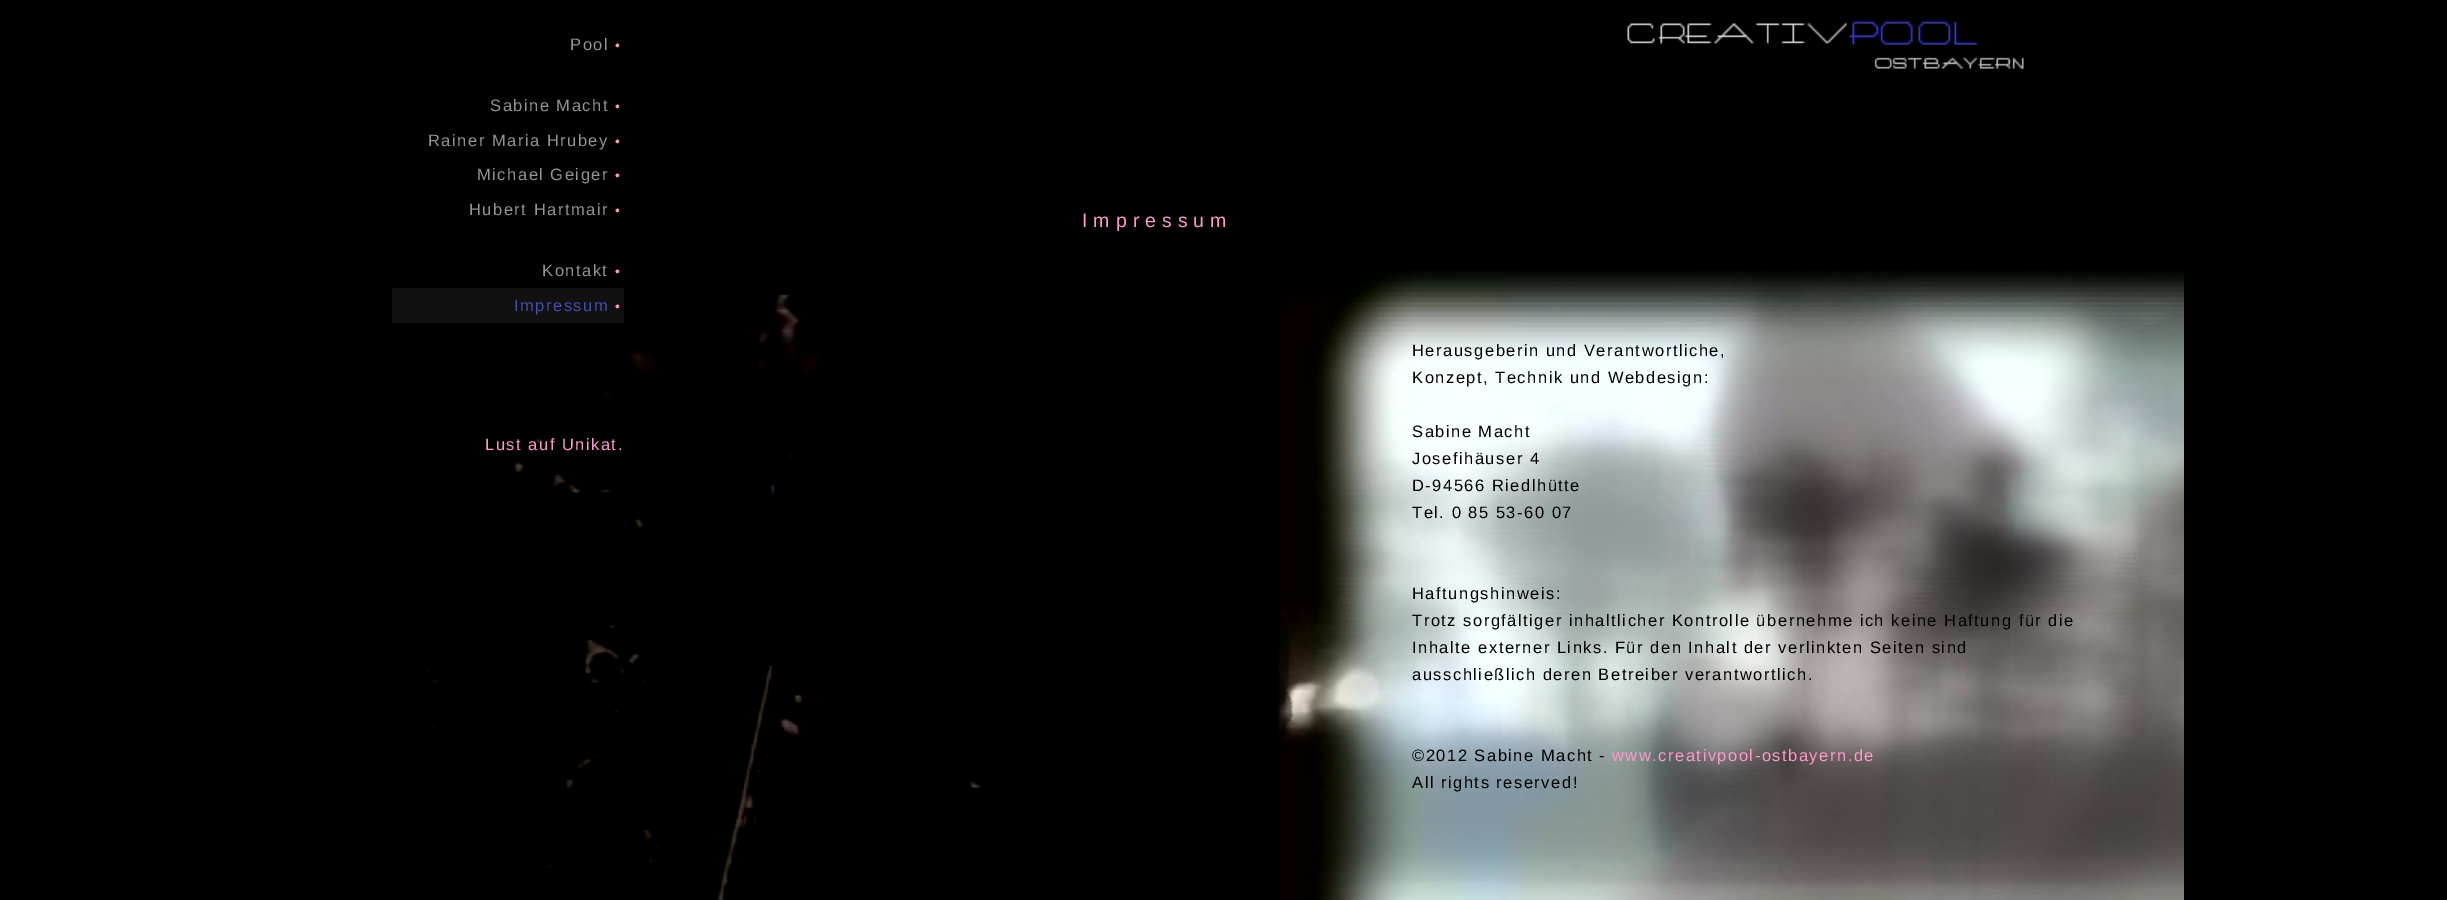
%!PS-Adobe-3.0
%%BoundingBox: 0 0 2447 900
%%LanguageLevel: 3
%%Pages: 1
%%EndComments
%%BeginProlog
/setink { dup -16 bitshift 255 div exch dup -8 bitshift 255 and 255 div exch 255 and 255 div setrgbcolor } def
/usefont { [ exch dup neg 0 0 3 -1 roll 0 0 ] selectfont } def
/drawimage { 5 dict begin { /h /w /y /x /name } { exch def } forall
  gsave x y translate w h scale
  w h 8 [w 0 0 h 0 0] name (r) file false 3 colorimage grestore end } def
%%EndProlog
%%BeginSetup
<< /PageSize [2447 900] >> setpagedevice
%%EndSetup
%%Page: 1 1
0 900 translate 1 -1 scale
4 setmiterlimit
16#000000 setink
0 0 2447 900 rectfill
(img1.raw) 427 270 1757 630 drawimage
/LiberationSans-Regular 16.5 usefont
16#939393 setink
570 50 moveto 1.5 0 (Pool) ashow
/LiberationSans-Regular 14 usefont
16#FF99CC setink
615 50 moveto 1.5 0 (•) ashow
/LiberationSans-Regular 16.5 usefont
16#939393 setink
490 111 moveto 1.5 0 (Sabine Macht) ashow
/LiberationSans-Regular 14 usefont
16#FF99CC setink
615 111 moveto 1.5 0 (•) ashow
/LiberationSans-Regular 16.5 usefont
16#939393 setink
428 146 moveto 1.5 0 (Rainer Maria Hrubey) ashow
/LiberationSans-Regular 14 usefont
16#FF99CC setink
615 146 moveto 1.5 0 (•) ashow
/LiberationSans-Regular 16.5 usefont
16#939393 setink
477 180 moveto 1.5 0 (Michael Geiger) ashow
/LiberationSans-Regular 14 usefont
16#FF99CC setink
615 180 moveto 1.5 0 (•) ashow
/LiberationSans-Regular 16.5 usefont
16#939393 setink
469 215 moveto 1.5 0 (Hubert Hartmair) ashow
/LiberationSans-Regular 14 usefont
16#FF99CC setink
615 215 moveto 1.5 0 (•) ashow
/LiberationSans-Regular 16.5 usefont
16#939393 setink
542 276 moveto 1.5 0 (Kontakt) ashow
/LiberationSans-Regular 14 usefont
16#FF99CC setink
615 276 moveto 1.5 0 (•) ashow
16#111111 setink
392 288 232 35 rectfill
/LiberationSans-Regular 16.5 usefont
16#464BB0 setink
514 311 moveto 1.5 0 (Impressum) ashow
/LiberationSans-Regular 14 usefont
16#FF99CC setink
615 311 moveto 1.5 0 (•) ashow
/LiberationSans-Regular 16.5 usefont
485 450 moveto 1.5 0 (Lust auf Unikat.) ashow
(img2.raw) 1627 19 397 51 drawimage
/LiberationSans-Regular 19.5 usefont
1082 227 moveto 6 0 (Impressum) ashow
/LiberationSans-Regular 16.5 usefont
16#000000 setink
1412 356 moveto 1.5 0 (Herausgeberin und Verantwortliche,) ashow
1412 383 moveto 1.5 0 (Konzept, Technik und Webdesign:) ashow
1412 437 moveto 1.5 0 (Sabine Macht) ashow
1412 464 moveto 1.5 0 (Josefihäuser 4) ashow
1412 491 moveto 1.5 0 (D-94566 Riedlhütte) ashow
1412 518 moveto 1.5 0 (Tel. 0 85 53-60 07) ashow
1412 599 moveto 1.5 0 (Haftungshinweis:) ashow
1412 626 moveto 1.5 0 (Trotz sorgfältiger inhaltlicher Kontrolle übernehme ich keine Haftung für die) ashow
1412 653 moveto 1.5 0 (Inhalte externer Links. Für den Inhalt der verlinkten Seiten sind) ashow
1412 680 moveto 1.5 0 (ausschließlich deren Betreiber verantwortlich.) ashow
1412 761 moveto 1.5 0 (©2012 Sabine Macht -) ashow
16#FF99CC setink
1612 761 moveto 1.5 0 (www.creativpool-ostbayern.de) ashow
16#000000 setink
1412 788 moveto 1.5 0 (All rights reserved!) ashow
showpage
%%EOF
